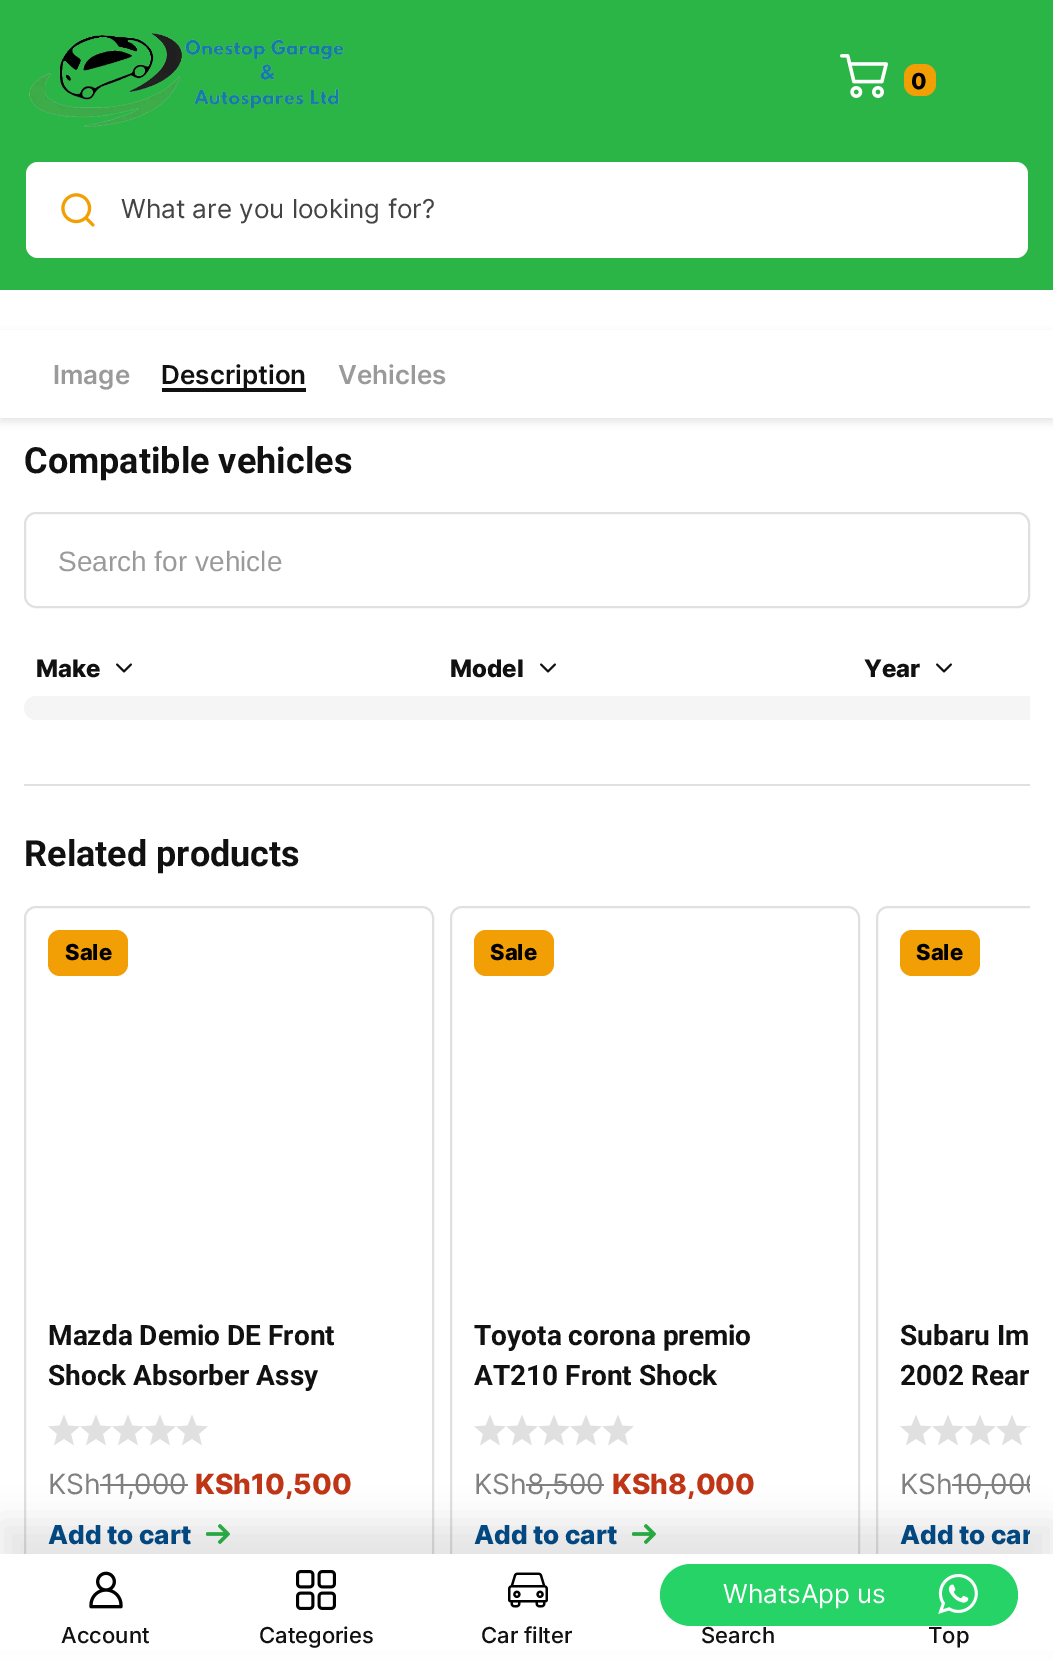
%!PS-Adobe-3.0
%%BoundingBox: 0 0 1053 1661
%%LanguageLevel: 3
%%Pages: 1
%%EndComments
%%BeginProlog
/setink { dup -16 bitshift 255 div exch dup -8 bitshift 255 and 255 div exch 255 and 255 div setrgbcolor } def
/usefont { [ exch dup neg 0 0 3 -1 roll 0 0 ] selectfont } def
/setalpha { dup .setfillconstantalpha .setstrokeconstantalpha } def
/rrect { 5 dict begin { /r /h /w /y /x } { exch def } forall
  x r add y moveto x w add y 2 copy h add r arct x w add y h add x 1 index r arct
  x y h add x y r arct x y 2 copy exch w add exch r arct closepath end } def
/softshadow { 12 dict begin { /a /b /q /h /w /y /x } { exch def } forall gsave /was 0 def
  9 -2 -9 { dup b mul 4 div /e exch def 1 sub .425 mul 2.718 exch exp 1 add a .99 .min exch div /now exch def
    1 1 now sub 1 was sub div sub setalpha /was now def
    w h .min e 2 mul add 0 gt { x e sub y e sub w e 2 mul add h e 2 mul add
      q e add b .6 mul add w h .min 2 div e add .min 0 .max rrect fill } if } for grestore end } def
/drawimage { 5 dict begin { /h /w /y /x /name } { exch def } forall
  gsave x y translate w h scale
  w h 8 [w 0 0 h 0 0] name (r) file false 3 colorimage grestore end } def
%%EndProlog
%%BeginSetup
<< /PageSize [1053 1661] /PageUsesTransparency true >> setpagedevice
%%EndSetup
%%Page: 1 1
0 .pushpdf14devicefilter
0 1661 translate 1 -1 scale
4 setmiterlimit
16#FFFFFF setink
0 0 1053 1661 rectfill
16#2BB546 setink
0 0 1053 290 rectfill
(img1.raw) 29 33 315 94 drawimage
(img2.raw) 840 54 48 44 drawimage
16#F29F05 setink
904 64 32 32 12 rrect fill
/Inter-ExtraBold 22 usefont
16#000000 setink
911 89 moveto (0) show
16#FFFFFF setink
26 162 1002 96 12 rrect fill
(img3.raw) 61 193 34 34 drawimage
/Inter-Regular 26 usefont
16#444444 setink
121 218 moveto (What are you looking for?) show
16#000000 setink
0 334 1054 88 0 4 0.1 softshadow
16#FFFFFF setink
0 330 1053 88 rectfill
/Inter-SemiBold 26 usefont
16#9A9A9A setink
53 384 moveto (Image) show
16#111111 setink
161 384 moveto (Description) show
162 388 144 4 rectfill
16#9A9A9A setink
338 384 moveto (Vehicles) show
/Roboto-Bold 36 usefont
16#111111 setink
24 473 moveto (Compatible vehicles) show
16#E0E0E0 setink
2 setlinewidth
25 513 1004 94 11 rrect stroke
/LiberationSans-Regular 28 usefont
16#9A9A9A setink
58 571 moveto (Search for vehicle) show
/Inter-ExtraBold 24 usefont
16#111111 setink
36 677 moveto (Make) show
(img4.raw) 116 663 16 10 drawimage
450 677 moveto (Model) show
(img4.raw) 540 663 16 10 drawimage
864 677 moveto (Year) show
(img4.raw) 936 663 16 10 drawimage
16#F5F5F5 setink
36 696 moveto 1030 696 lineto 1030 720 lineto 36 720 lineto 29.5 720 24 714.5 24 708 curveto 24 701.5 29.5 696 36 696 curveto closepath fill
16#E0E0E0 setink
24 784 1006 2 rectfill
/Roboto-Bold 36 usefont
16#111111 setink
24 866 moveto (Related products) show
16#E0E0E0 setink
25 907 408 670 11 rrect stroke
16#F29F05 setink
48 930 80 46 12 rrect fill
/Inter-ExtraBold 22 usefont
16#000000 setink
65 960 moveto (Sale) show
/Roboto-Bold 28 usefont
16#111111 setink
48 1345 moveto (Mazda Demio DE Front) show
48 1385 moveto (Shock Absorber Assy) show
(img5.raw) 48 1415 160 31 drawimage
/Inter-Regular 28 usefont
16#808080 setink
48 1494 moveto (KSh11,000) show
100 1484 88 2 rectfill
/Inter-ExtraBold 28 usefont
16#BF3617 setink
195 1494 moveto (KSh) show
251 1494 moveto (10,500) show
/Inter-ExtraBold 26 usefont
16#034C8C setink
48 1544 moveto (Add to cart) show
(img6.raw) 206 1524 24 20 drawimage
16#E0E0E0 setink
451 907 408 670 11 rrect stroke
16#F29F05 setink
474 930 80 46 12 rrect fill
/Inter-ExtraBold 22 usefont
16#000000 setink
490 960 moveto (Sale) show
/Roboto-Bold 28 usefont
16#111111 setink
474 1345 moveto (Toyota corona premio) show
474 1385 moveto (AT210 Front Shock) show
(img5.raw) 474 1415 160 31 drawimage
/Inter-Regular 28 usefont
16#808080 setink
474 1494 moveto (KSh8,500) show
526 1484 78 2 rectfill
/Inter-ExtraBold 28 usefont
16#BF3617 setink
612 1494 moveto (KSh) show
668 1494 moveto (8,000) show
/Inter-ExtraBold 26 usefont
16#034C8C setink
474 1544 moveto (Add to cart) show
(img6.raw) 632 1524 24 20 drawimage
gsave
24 906 1006 672 rectclip
16#E0E0E0 setink
877 907 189 670 11 rrect stroke
grestore
16#F29F05 setink
900 930 80 46 12 rrect fill
/Inter-ExtraBold 22 usefont
16#000000 setink
916 960 moveto (Sale) show
/Roboto-Bold 28 usefont
16#111111 setink
900 1345 moveto (Subaru Im) show
900 1385 moveto (2002 Rear) show
(img7.raw) 900 1415 130 31 drawimage
/Inter-Regular 28 usefont
16#808080 setink
900 1494 moveto (KSh) show
gsave
24 906 1006 672 rectclip
952 1494 moveto (10,000) show
grestore
952 1484 78 2 rectfill
gsave
24 906 1006 672 rectclip
/Inter-ExtraBold 26 usefont
16#034C8C setink
900 1544 moveto (Add to car) show
grestore
16#000000 setink
0 1522 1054 108 0 16 0.1 softshadow
16#FFFFFF setink
632 1554 421 96 rectfill
16#25D366 setink
660 1564 358 62 31 rrect fill
/Inter-Regular 26 usefont
16#FFFFFF setink
723 1603 moveto (WhatsApp us) show
(img8.raw) 938 1574 40 40 drawimage
0 1554 632 96 rectfill
(img9.raw) 89 1571 34 38 drawimage
/Inter-Medium 22 usefont
16#111111 setink
61 1643 moveto (Account) show
(img10.raw) 296 1570 40 40 drawimage
259 1643 moveto (Categories) show
(img11.raw) 508 1572 40 36 drawimage
[
    [(Car filter) 481 1643]
    [(Search) 701 1643]
    [(Top) 928 1643]
] { aload pop moveto show } forall
.poppdf14devicefilter showpage
%%EOF
